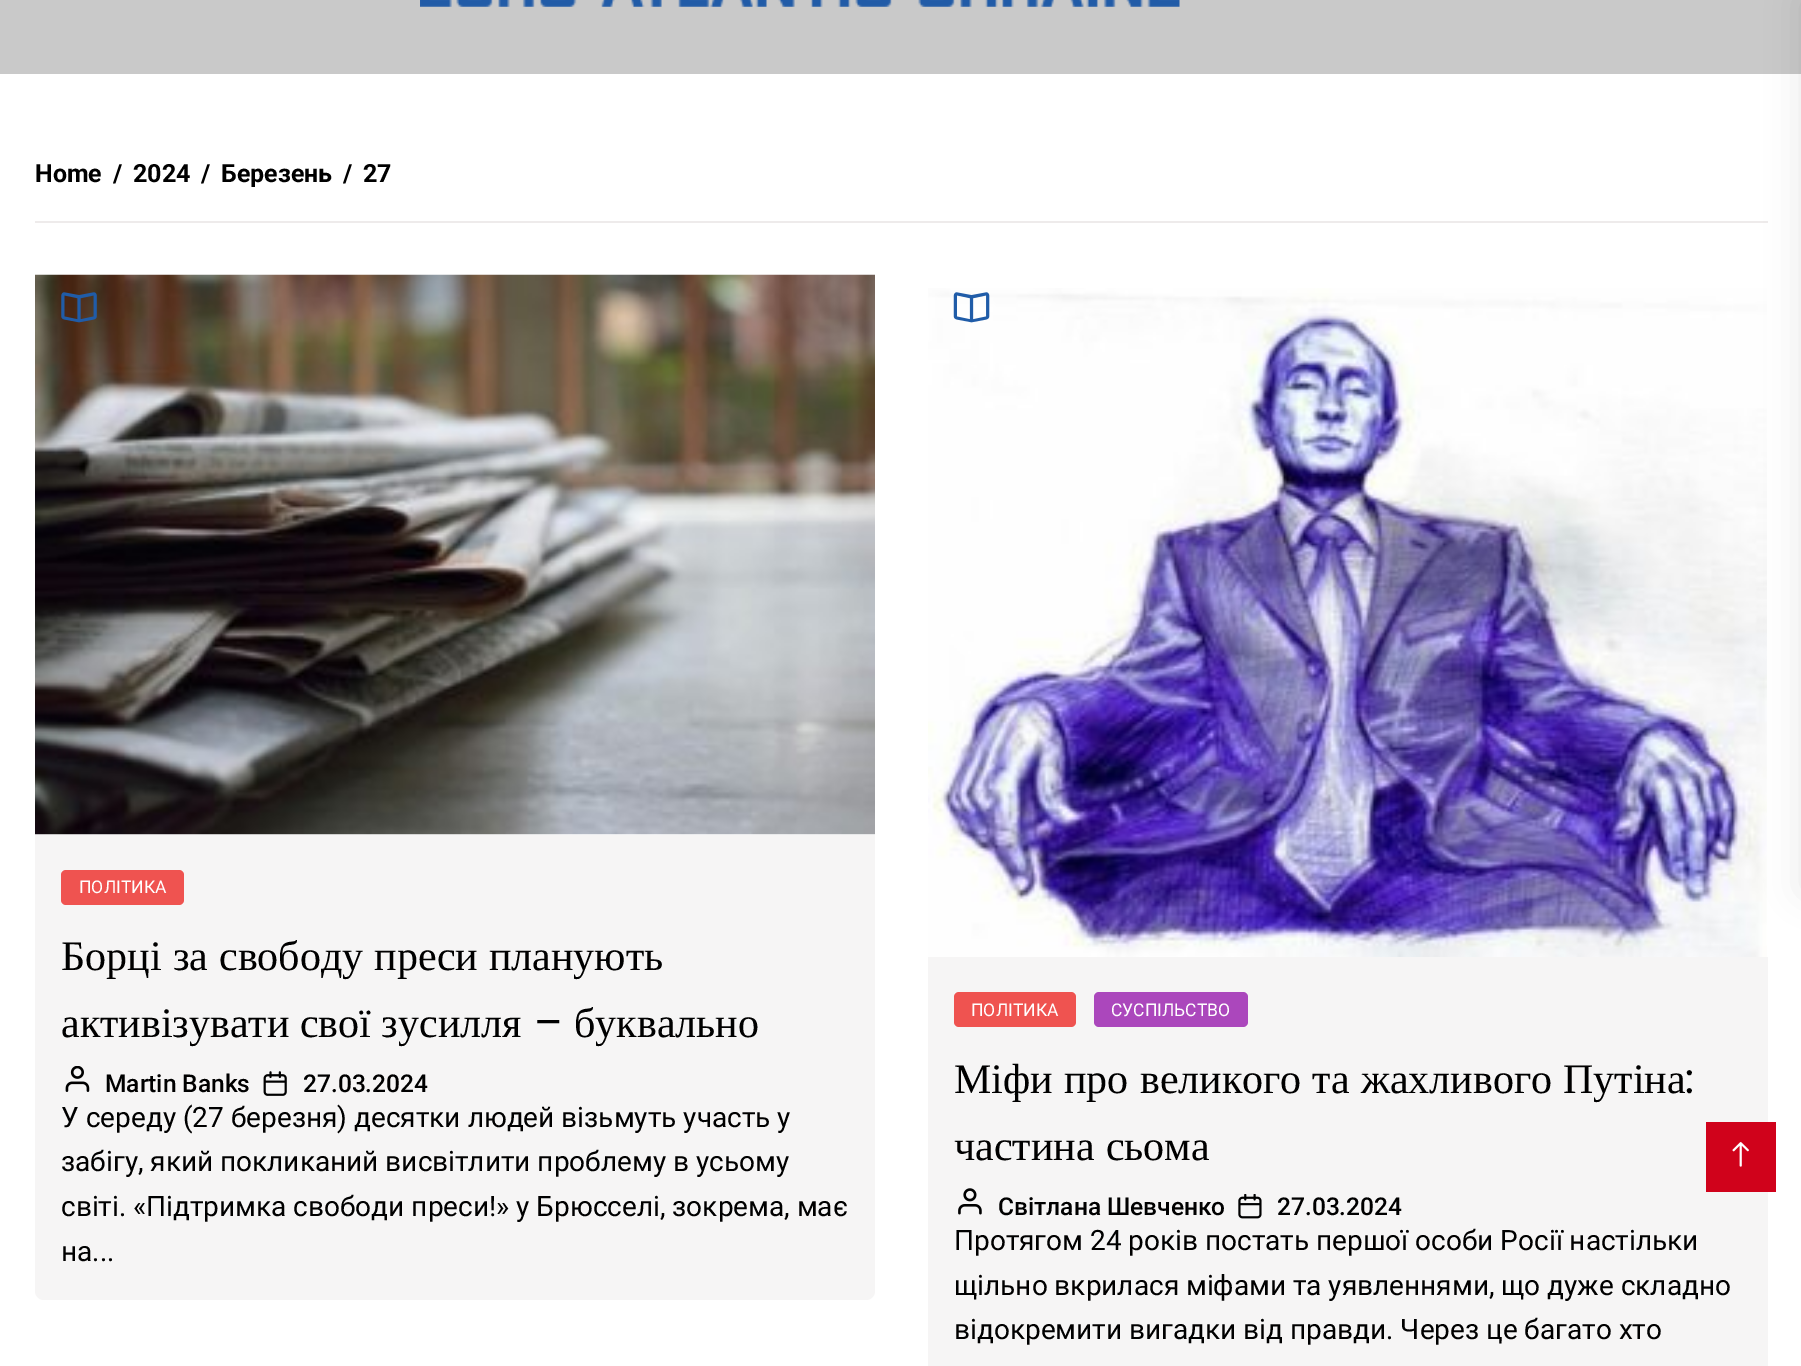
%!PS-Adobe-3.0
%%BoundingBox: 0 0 1801 1366
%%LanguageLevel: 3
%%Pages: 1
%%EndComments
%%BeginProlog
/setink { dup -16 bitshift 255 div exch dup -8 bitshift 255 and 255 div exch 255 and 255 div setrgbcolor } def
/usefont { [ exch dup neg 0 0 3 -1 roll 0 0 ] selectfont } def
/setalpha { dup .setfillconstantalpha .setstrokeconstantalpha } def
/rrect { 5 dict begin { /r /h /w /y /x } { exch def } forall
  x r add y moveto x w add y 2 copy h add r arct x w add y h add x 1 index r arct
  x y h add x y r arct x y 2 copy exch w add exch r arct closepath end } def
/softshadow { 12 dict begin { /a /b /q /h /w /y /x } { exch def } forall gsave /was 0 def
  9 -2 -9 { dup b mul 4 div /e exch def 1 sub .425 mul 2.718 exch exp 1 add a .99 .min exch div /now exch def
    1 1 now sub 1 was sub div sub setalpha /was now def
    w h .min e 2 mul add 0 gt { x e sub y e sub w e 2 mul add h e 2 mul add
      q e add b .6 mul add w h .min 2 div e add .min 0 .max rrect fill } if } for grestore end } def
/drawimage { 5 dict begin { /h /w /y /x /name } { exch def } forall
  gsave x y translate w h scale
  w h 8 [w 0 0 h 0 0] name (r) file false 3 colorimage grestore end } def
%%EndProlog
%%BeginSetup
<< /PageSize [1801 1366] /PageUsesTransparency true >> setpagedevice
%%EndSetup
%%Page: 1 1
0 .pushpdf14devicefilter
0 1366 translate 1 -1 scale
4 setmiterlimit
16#FFFFFF setink
0 0 1801 1366 rectfill
16#C9C9C9 setink
0 0 1801 74 rectfill
(img1.raw) 420 0 760 7 drawimage
16#EEEBEB setink
35 221 1733 2 rectfill
/Roboto-Bold 25 usefont
16#000000 setink
[
    [(Home) 35 182]
    [(/) 113 182]
    [(2024) 133 182]
    [(/) 201 182]
    [(Березень) 221 182]
    [(/) 343 182]
    [(27) 363 182]
] { aload pop moveto show } forall
(img2.raw) 35 274 840 561 drawimage
(img3.raw) 61 292 36 31 drawimage
16#F6F5F5 setink
35 835 moveto 875 835 lineto 875 1291 lineto 875 1296 871 1300 866 1300 curveto 44 1300 lineto 39 1300 35 1296 35 1291 curveto closepath fill
16#EF5350 setink
61 870 123 35 5 rrect fill
/Roboto-Regular 17.5 usefont
16#FFFFFF setink
79 893 moveto (ПОЛІТИКА) show
/LiberationSerif-Regular 42 usefont
16#000000 setink
61 970 moveto 0.75 0 32 (Борці за свободу преси планують) widthshow
61 1037 moveto (активізувати свої зусилля) show
/Poppins-Regular 42 usefont
534 1037 moveto (–) show
/LiberationSerif-Regular 42 usefont
574 1037 moveto (буквально) show
(img4.raw) 65 1066 25 26 drawimage
/Roboto-Medium 24.5 usefont
105 1092 moveto (Martin Banks) show
(img5.raw) 263 1071 24 25 drawimage
303 1092 moveto (27.03.2024) show
/Roboto-Regular 28 usefont
[
    [(У середу \(27 березня\) десятки людей візьмуть участь у) 61 1127]
    [(забігу, який покликаний висвітлити проблему в усьому) 61 1171]
    [(світі. «Підтримка свободи преси!» у Брюсселі, зокрема, має) 61 1216]
    [(на...) 61 1261]
] { aload pop moveto show } forall
(img6.raw) 928 288 839 669 drawimage
(img7.raw) 953 292 37 31 drawimage
16#F6F5F5 setink
928 957 840 409 rectfill
16#EF5350 setink
954 992 122 35 5 rrect fill
/Roboto-Regular 17.5 usefont
16#FFFFFF setink
971 1016 moveto (ПОЛІТИКА) show
16#AB47BC setink
1094 992 154 35 5 rrect fill
16#FFFFFF setink
1111 1016 moveto (СУСПІЛЬСТВО) show
/LiberationSerif-Regular 42 usefont
16#000000 setink
954 1093 moveto 0.75 0 32 (Міфи про великого та жахливого Путіна) widthshow
/Poppins-Regular 42 usefont
1685 1093 moveto (:) show
/LiberationSerif-Regular 42 usefont
954 1160 moveto 0.75 0 32 (частина сьома) widthshow
(img8.raw) 958 1188 24 27 drawimage
/Roboto-Medium 24.5 usefont
998 1215 moveto (Світлана Шевченко) show
(img9.raw) 1238 1194 24 25 drawimage
1277 1215 moveto (27.03.2024) show
/Roboto-Regular 28 usefont
[
    [(Протягом 24 років постать першої особи Росії настільки) 954 1250]
    [(щільно вкрилася міфами та уявленнями, що дуже складно) 954 1295]
    [(відокремити вигадки від правди. Через це багато хто) 954 1339]
] { aload pop moveto show } forall
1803 0 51 891 0 17.5 0.1 softshadow
16#D0021B setink
1706 1122 70 70 rectfill
(img10.raw) 1732 1142 17 25 drawimage
.poppdf14devicefilter showpage
%%EOF
